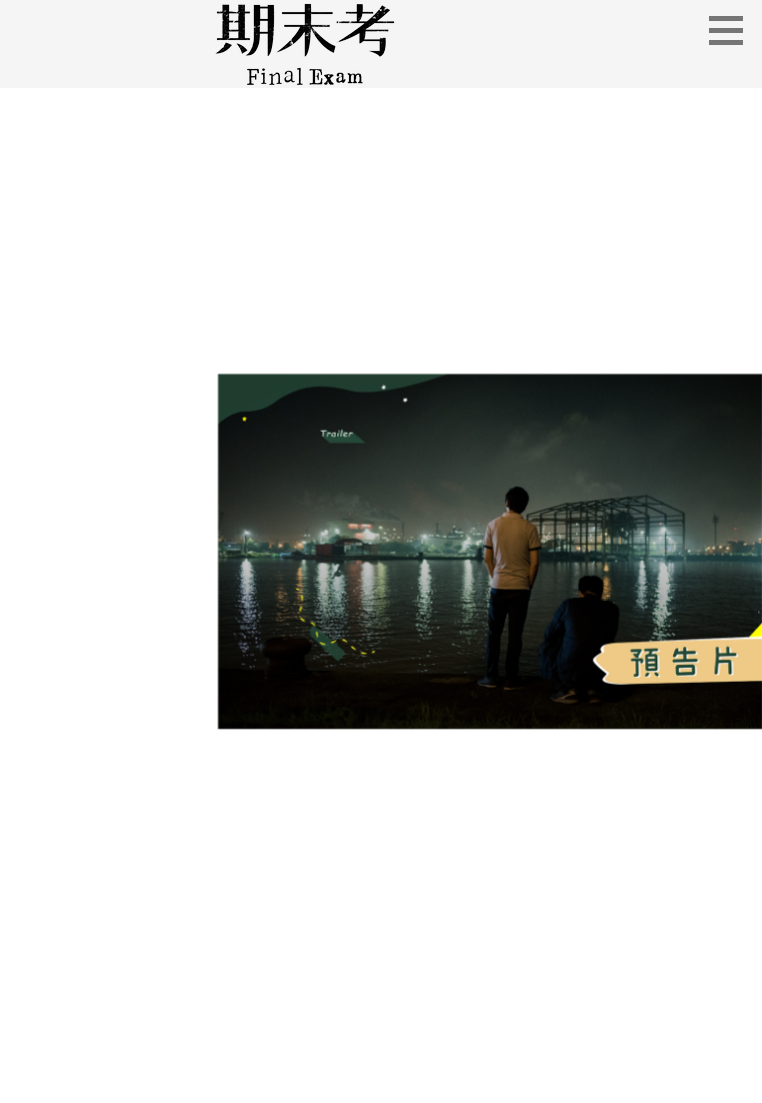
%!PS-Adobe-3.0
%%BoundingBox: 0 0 762 1103
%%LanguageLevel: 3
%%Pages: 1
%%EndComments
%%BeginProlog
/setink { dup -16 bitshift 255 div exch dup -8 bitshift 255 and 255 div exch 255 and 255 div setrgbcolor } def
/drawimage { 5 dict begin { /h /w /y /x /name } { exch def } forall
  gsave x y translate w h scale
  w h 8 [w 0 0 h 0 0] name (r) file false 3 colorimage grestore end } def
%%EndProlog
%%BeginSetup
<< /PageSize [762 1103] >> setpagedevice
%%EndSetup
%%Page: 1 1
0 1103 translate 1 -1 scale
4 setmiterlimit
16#FFFFFF setink
0 0 762 1103 rectfill
16#F5F5F5 setink
0 0 762 88 rectfill
(img1.raw) 215 3 180 82 drawimage
[
    [709 16 34 5 16#757575]
    [709 28 34 5 16#757575]
    [709 40 34 5 16#757575]
] { aload pop setink rectfill } forall
(img2.raw) 217 373 545 357 drawimage
showpage
%%EOF
